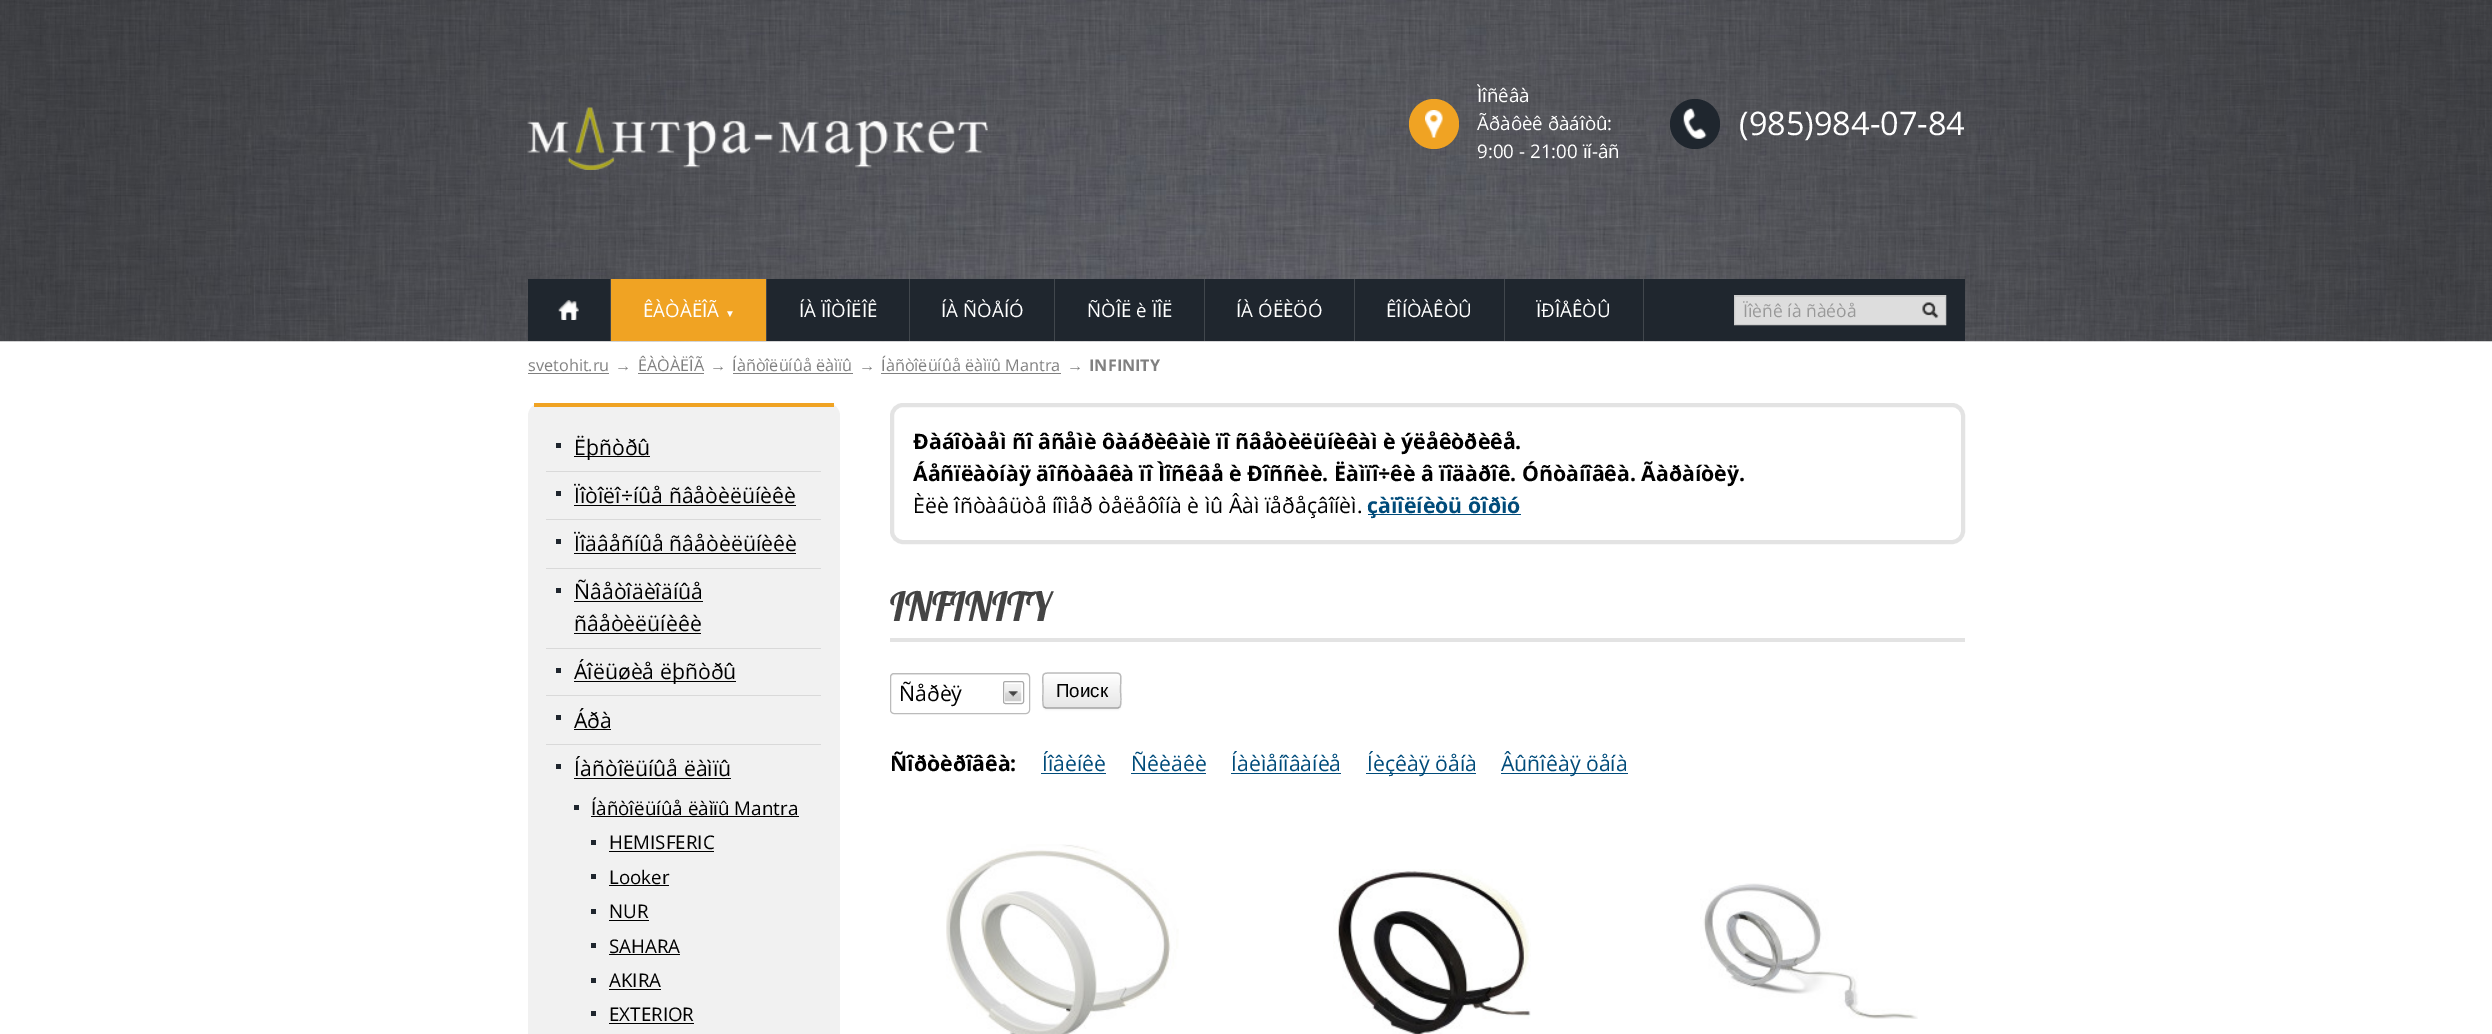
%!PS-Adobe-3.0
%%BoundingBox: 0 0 2492 1034
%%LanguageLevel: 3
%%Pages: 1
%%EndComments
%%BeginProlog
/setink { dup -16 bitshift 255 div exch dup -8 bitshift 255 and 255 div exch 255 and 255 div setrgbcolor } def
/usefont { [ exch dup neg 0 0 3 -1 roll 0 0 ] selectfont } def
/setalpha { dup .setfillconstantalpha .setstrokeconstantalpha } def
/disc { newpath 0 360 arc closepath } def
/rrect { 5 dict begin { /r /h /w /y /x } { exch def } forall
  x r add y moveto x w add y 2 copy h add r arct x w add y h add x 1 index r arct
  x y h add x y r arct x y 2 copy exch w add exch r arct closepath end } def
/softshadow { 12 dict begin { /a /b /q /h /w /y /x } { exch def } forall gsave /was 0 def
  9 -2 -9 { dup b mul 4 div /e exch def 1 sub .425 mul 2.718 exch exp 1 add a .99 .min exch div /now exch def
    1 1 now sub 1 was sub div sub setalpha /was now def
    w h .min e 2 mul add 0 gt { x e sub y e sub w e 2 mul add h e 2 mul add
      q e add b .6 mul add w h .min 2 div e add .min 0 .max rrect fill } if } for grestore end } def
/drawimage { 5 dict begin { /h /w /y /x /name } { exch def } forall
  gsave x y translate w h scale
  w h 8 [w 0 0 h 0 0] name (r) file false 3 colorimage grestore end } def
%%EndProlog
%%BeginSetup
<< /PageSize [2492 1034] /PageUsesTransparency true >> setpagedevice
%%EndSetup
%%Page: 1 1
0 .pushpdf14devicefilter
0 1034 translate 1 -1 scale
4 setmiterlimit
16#FFFFFF setink
0 0 2492 1034 rectfill
(img1.raw) 0 0 2492 342 drawimage
(img2.raw) 527 107 461 63 drawimage
16#F0A323 setink
1434 124 25 disc fill
(img3.raw) 1425 110 18 28 drawimage
/OpenSans-Regular 18.75 usefont
16#FFFFFF setink
[
    [(Ìîñêâà) 1477 102]
    [(Ãðàôèê ðàáîòû:) 1477 130]
    [(9:00 - 21:00 ïí-âñ) 1477 158]
] { aload pop moveto show } forall
16#1F262E setink
1695 124 25 disc fill
(img4.raw) 1683 108 24 31 drawimage
/OpenSans-Regular 32.5 usefont
16#FFFFFF setink
1739 135 moveto (\(985\)984-07-84) show
16#1F262E setink
528 279 1437 62 rectfill
(img5.raw) 558 300 21 20 drawimage
16#41474D setink
610 279 1 62 rectfill
16#F0A323 setink
611 279 155 62 rectfill
/OpenSans-Regular 18.75 usefont
16#FFFFFF setink
643 317 moveto (ÊÀÒÀËÎÃ) show
/LiberationSerif-Regular 10 usefont
725 317 moveto (▼) show
16#41474D setink
766 279 1 62 rectfill
/OpenSans-Regular 18.75 usefont
16#FFFFFF setink
799 317 moveto (ÍÀ ÏÎÒÎËÎÊ) show
16#41474D setink
909 279 1 62 rectfill
16#FFFFFF setink
941 317 moveto (ÍÀ ÑÒÅÍÓ) show
16#41474D setink
1054 279 1 62 rectfill
16#FFFFFF setink
1087 317 moveto (ÑÒÎË è ÏÎË) show
16#41474D setink
1204 279 1 62 rectfill
16#FFFFFF setink
1236 317 moveto (ÍÀ ÓËÈÖÓ) show
16#41474D setink
1354 279 1 62 rectfill
16#FFFFFF setink
1386 317 moveto (ÊÎÍÒÀÊÒÛ) show
16#41474D setink
1504 279 1 62 rectfill
16#FFFFFF setink
1536 317 moveto (ÏÐÎÅÊÒÛ) show
[
    [1643 279 1 62 16#41474D]
    [1735 297 210 27 16#DDDDDD]
    [1735 296 210 1 16#CCCCCC]
] { aload pop setink rectfill } forall
1734.5 295.5 211 29 rectstroke
/OpenSans-Regular 17.5 usefont
16#999999 setink
1743 317 moveto (Ïîèñê íà ñàéòå) show
(img6.raw) 1922 302 17 17 drawimage
/OpenSans-Regular 16.25 usefont
16#808080 setink
528 371 moveto (svetohit.ru) show
528 373 81 1 rectfill
/LiberationSerif-Regular 16.25 usefont
615 371 moveto (→) show
638 373 66 1 rectfill
/OpenSans-Regular 16.25 usefont
638 371 moveto (ÊÀÒÀËÎÃ) show
/LiberationSerif-Regular 16.25 usefont
710 371 moveto (→) show
733 373 120 1 rectfill
/OpenSans-Regular 16.25 usefont
732 371 moveto (Íàñòîëüíûå ëàìïû) show
/LiberationSerif-Regular 16.25 usefont
859 371 moveto (→) show
881 373 180 1 rectfill
/OpenSans-Regular 16.25 usefont
881 371 moveto (Íàñòîëüíûå ëàìïû Mantra) show
/LiberationSerif-Regular 16.25 usefont
1067 371 moveto (→) show
/OpenSans-Bold 16.25 usefont
1089 371 moveto (INFINITY) show
16#F1F1F1 setink
528 403 312 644 13 rrect fill
[
    [534 403 300 4 16#F0A323]
    [556 443 5 5 16#1F262E]
    [574 456 76 1 16#000000]
] { aload pop setink rectfill } forall
/OpenSans-Regular 21.25 usefont
574 455 moveto (Ëþñòðû) show
16#D9D9D9 setink
546 471 275 1 rectfill
16#1F262E setink
556 491 5 5 rectfill
16#000000 setink
574 503 moveto (Ïîòîëî÷íûå ñâåòèëüíèêè) show
[
    [574 505 222 1 16#000000]
    [546 519 275 1 16#D9D9D9]
    [556 539 5 5 16#1F262E]
] { aload pop setink rectfill } forall
16#000000 setink
574 551 moveto (Ïîäâåñíûå ñâåòèëüíèêè) show
[
    [574 553 222 1 16#000000]
    [546 568 275 1 16#D9D9D9]
    [556 588 5 5 16#1F262E]
] { aload pop setink rectfill } forall
16#000000 setink
574 599 moveto (Ñâåòîäèîäíûå) show
574 601 129 1 rectfill
574 631 moveto (ñâåòèëüíèêè) show
[
    [574 633 127 1 16#000000]
    [546 648 275 1 16#D9D9D9]
    [556 668 5 5 16#1F262E]
    [574 681 162 1 16#000000]
] { aload pop setink rectfill } forall
574 679 moveto (Áîëüøèå ëþñòðû) show
16#D9D9D9 setink
546 695 275 1 rectfill
16#1F262E setink
556 715 5 5 rectfill
16#000000 setink
574 728 moveto (Áðà) show
[
    [574 729 37 1 16#000000]
    [546 744 275 1 16#D9D9D9]
    [556 764 5 5 16#1F262E]
] { aload pop setink rectfill } forall
16#000000 setink
574 776 moveto (Íàñòîëüíûå ëàìïû) show
574 778 157 1 rectfill
16#1F262E setink
574 805 5 5 rectfill
/OpenSans-Regular 18.75 usefont
16#000000 setink
591 815 moveto (Íàñòîëüíûå ëàìïû Mantra) show
591 816 208 1 rectfill
16#1F262E setink
591 840 5 5 rectfill
16#000000 setink
609 849 moveto (HEMISFERIC) show
609 851 105 1 rectfill
16#1F262E setink
591 874 5 5 rectfill
16#000000 setink
609 884 moveto (Looker) show
609 885 60 1 rectfill
16#1F262E setink
591 909 5 5 rectfill
16#000000 setink
609 918 moveto (NUR) show
609 920 40 1 rectfill
16#1F262E setink
591 943 5 5 rectfill
16#000000 setink
609 953 moveto (SAHARA) show
609 954 71 1 rectfill
16#1F262E setink
591 978 5 5 rectfill
16#000000 setink
609 987 moveto (AKIRA) show
609 989 52 1 rectfill
16#1F262E setink
591 1011 5 5 rectfill
16#000000 setink
609 1021 moveto (EXTERIOR) show
609 1023 85 1 rectfill
16#E3E3E3 setink
4 setlinewidth
892 405 1071 137 11 rrect stroke
/OpenSans-Bold 21.25 usefont
16#000000 setink
913 449 moveto (Ðàáîòàåì ñî âñåìè ôàáðèêàìè ïî ñâåòèëüíèêàì è ýëåêòðèêå.) show
913 481 moveto (Áåñïëàòíàÿ äîñòàâêà ïî Ìîñêâå è Ðîññèè. Ëàìïî÷êè â ïîäàðîê. Óñòàíîâêà. Ãàðàíòèÿ.) show
/OpenSans-Regular 21.25 usefont
913 513 moveto (Èëè îñòàâüòå íîìåð òåëåôîíà è ìû Âàì ïåðåçâîíèì.) show
16#004B7A setink
1368 514 153 1 rectfill
/OpenSans-Bold 21.25 usefont
1367 513 moveto (çàïîëíèòü ôîðìó) show
16#E3E3E3 setink
890 638 1075 4 rectfill
/Lobster-Regular 40 usefont
16#444444 setink
890 621 moveto (INFINITY) show
16#ECECEC setink
894 675 moveto 1026 675 lineto 1028 675 1029 676 1029 678 curveto 1029 676 lineto 1029 675 1028 674 1026 674 curveto 894 674 lineto 892 674 891 675 891 676 curveto 891 678 lineto 891 676 892 675 894 675 curveto closepath fill
16#BBBBBB setink
1 setlinewidth
890.5 673.5 139 40 3.5 rrect stroke
/OpenSans-Regular 21.25 usefont
16#000000 setink
899 701 moveto (Ñåðèÿ) show
(img7.raw) 1005 684 17 18 drawimage
16#AAAAAA setink
1003.5 681.5 20 22 2 rrect stroke
16#000000 setink
1043 674 78 36 4 1 0.05 softshadow
16#F5F5F5 setink
1043 673 78 36 4 rrect fill
gsave
1043 673 78 36 4 rrect clip newpath
gsave 1043 674 moveto 1121 674 lineto 1121 708 lineto 1043 708 lineto closepath clip newpath
<< /ShadingType 2 /ColorSpace /DeviceRGB /Coords [1082 674 1082 708] /Extend [true true] /Function << /FunctionType 2 /Domain [0 1] /C0 [1 1 1] /C1 [0.902 0.902 0.902] /N 1 >> >> shfill grestore
grestore
16#A2A2A2 setink
1.2 setlinewidth
1119.5 707 moveto 1118 708 lineto 1046 708 lineto 1044 707 lineto stroke
16#BBBBBB setink
1044 707 moveto 1042 705 1043 693.5 1043 690.5 curveto 1043 671 1039.5 673 1058 673 curveto 1105.5 673 lineto 1124.5 673 1120.5 671 1120.5 690.5 curveto 1120.5 693.5 1122 705 1119.5 707 curveto stroke
/LiberationSans-Regular 18.75 usefont
16#000000 setink
1056 697 moveto (Поиск) show
/OpenSans-Bold 21.25 usefont
890 771 moveto (Ñîðòèðîâêà:) show
/OpenSans-Regular 21.25 usefont
16#004B7A setink
1042 771 moveto (Íîâèíêè) show
1041 773 65 1 rectfill
1131 771 moveto (Ñêèäêè) show
1131 773 75 1 rectfill
1231 771 moveto (Íàèìåíîâàíèå) show
1231 773 110 1 rectfill
1366 773 110 1 rectfill
1367 771 moveto (Íèçêàÿ öåíà) show
1501 773 127 1 rectfill
1501 771 moveto (Âûñîêàÿ öåíà) show
(img8.raw) 946 844 233 190 drawimage
(img9.raw) 1333 869 198 165 drawimage
(img10.raw) 1700 883 218 136 drawimage
.poppdf14devicefilter showpage
%%EOF
